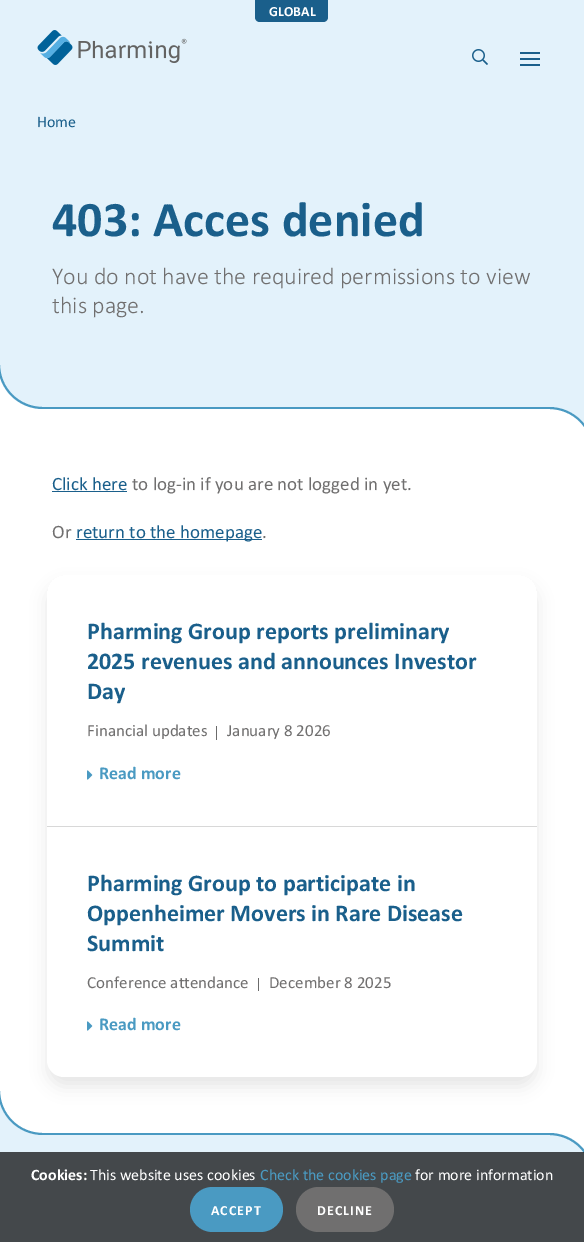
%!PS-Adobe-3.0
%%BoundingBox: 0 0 584 1242
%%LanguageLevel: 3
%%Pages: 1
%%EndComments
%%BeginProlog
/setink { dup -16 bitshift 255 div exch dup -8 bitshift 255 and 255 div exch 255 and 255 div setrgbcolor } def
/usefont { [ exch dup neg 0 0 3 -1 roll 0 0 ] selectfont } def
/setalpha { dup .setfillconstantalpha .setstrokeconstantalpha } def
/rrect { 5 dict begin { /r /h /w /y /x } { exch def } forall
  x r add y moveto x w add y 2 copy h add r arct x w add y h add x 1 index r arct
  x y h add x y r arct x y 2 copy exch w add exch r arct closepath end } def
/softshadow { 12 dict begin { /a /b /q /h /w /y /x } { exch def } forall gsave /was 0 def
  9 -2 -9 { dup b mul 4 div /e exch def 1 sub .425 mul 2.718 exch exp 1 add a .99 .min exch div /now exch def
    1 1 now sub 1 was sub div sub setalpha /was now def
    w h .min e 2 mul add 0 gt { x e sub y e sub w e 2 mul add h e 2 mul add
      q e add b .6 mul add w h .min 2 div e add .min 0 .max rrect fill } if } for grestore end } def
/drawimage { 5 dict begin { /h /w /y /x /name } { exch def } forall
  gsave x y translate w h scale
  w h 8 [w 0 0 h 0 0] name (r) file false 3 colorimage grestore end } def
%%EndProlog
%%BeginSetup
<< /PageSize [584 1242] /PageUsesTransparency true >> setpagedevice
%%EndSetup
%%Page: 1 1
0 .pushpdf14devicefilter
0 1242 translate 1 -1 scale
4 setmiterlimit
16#FFFFFF setink
0 0 584 1242 rectfill
16#E3F2FB setink
0 0 584 189 rectfill
16#1A5F8B setink
255 0 moveto 328 0 lineto 328 17 lineto 328 20 326 22 323 22 curveto 260 22 lineto 257 22 255 20 255 17 curveto closepath fill
/Calibri-Bold 14 usefont
16#FFFFFF setink
269 16 moveto (GLOBAL) show
(img1.raw) 37 30 150 35 drawimage
(img2.raw) 472 49 16 16 drawimage
[
    [520 58 20 2 16#1A5F8B]
    [520 52 20 2 16#1A5F8B]
    [520 64 20 2 16#1A5F8B]
] { aload pop setink rectfill } forall
/Calibri-Regular 16 usefont
37 127 moveto (Home) show
16#E3F2FB setink
-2 189 moveto 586 189 lineto 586 409 lineto 43 409 lineto 18 409 -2 389 -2 364 curveto closepath fill
16#4A9AC2 setink
-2 189 moveto 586 189 lineto 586 409 lineto 43 409 lineto 18 409 -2 389 -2 364 curveto closepath 0 189 moveto 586 189 lineto 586 407 lineto 43 407 lineto 19 407 0 388 0 364 curveto closepath eofill
/Calibri-Bold 50 usefont
16#1A5F8B setink
52 236 moveto (403: Acces denied) show
/Calibri-Light 24 usefont
16#706F6F setink
52 284 moveto (You do not have the required permissions to view) show
52 313 moveto (this page.) show
16#E3F2FB setink
549 407 35 17 rectfill
16#FFFFFF setink
300 407 moveto 549 407 lineto 574 407 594 427 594 452 curveto 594 467 lineto 300 467 lineto closepath fill
16#4A9AC2 setink
300 407 moveto 549 407 lineto 574 407 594 427 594 452 curveto 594 467 lineto 300 467 lineto closepath 300 409 moveto 549 409 lineto 573 409 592 428 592 452 curveto 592 467 lineto 300 467 lineto closepath eofill
/Calibri-Regular 19 usefont
16#1A5F8B setink
52 490 moveto (Click here) show
52 491 75 1 rectfill
16#706F6F setink
132 490 moveto (to log-in if you are not logged in yet.) show
52 538 moveto (Or) show
16#1A5F8B setink
76 539 186 1 rectfill
76 538 moveto (return to the homepage) show
16#706F6F setink
262 538 moveto (.) show
16#E3F2FB setink
0 1103 584 139 rectfill
16#FFFFFF setink
-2 1085 moveto 582 1085 lineto 582 1135 lineto 43 1135 lineto 18 1135 -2 1115 -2 1090 curveto closepath fill
16#4A9AC2 setink
-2 1085 moveto 582 1085 lineto 582 1135 lineto 43 1135 lineto 18 1135 -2 1115 -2 1090 curveto closepath 0 1085 moveto 582 1085 lineto 582 1133 lineto 43 1133 lineto 19 1133 0 1114 0 1090 curveto closepath eofill
16#FFFFFF setink
302 1103 282 47 rectfill
gsave
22 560 moveto 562 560 lineto 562 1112 lineto 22 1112 lineto closepath 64 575 moveto 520 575 lineto 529.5 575 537 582.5 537 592 curveto 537 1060 lineto 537 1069.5 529.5 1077 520 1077 curveto 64 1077 lineto 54.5 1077 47 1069.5 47 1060 curveto 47 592 lineto 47 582.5 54.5 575 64 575 curveto closepath eoclip newpath
16#000000 setink
47 585 490 502 17 8 0.09 softshadow
grestore
16#D8D8D8 setink
47 826 490 1 rectfill
/Calibri-Bold 24 usefont
16#1A5F8B setink
[
    [(Pharming Group reports preliminary) 87 639]
    [(2025 revenues and announces Investor) 87 669]
    [(Day) 87 699]
] { aload pop moveto show } forall
/Calibri-Regular 17 usefont
16#706F6F setink
87 736 moveto (Financial updates) show
16#6B6B6B setink
216 726 1 14 rectfill
16#706F6F setink
227 736 moveto (January 8 2026) show
(img3.raw) 87 770 6 10 drawimage
/Calibri-Bold 18 usefont
16#4A9AC2 setink
99 779 moveto (Read more) show
16#FFFFFF setink
47 827 moveto 537 827 lineto 537 1060 lineto 537 1069.5 529.5 1077 520 1077 curveto 64 1077 lineto 54.5 1077 47 1069.5 47 1060 curveto closepath fill
/Calibri-Bold 24 usefont
16#1A5F8B setink
[
    [(Pharming Group to participate in) 87 891]
    [(Oppenheimer Movers in Rare Disease) 87 921]
    [(Summit) 87 951]
] { aload pop moveto show } forall
/Calibri-Regular 17 usefont
16#706F6F setink
87 988 moveto (Conference attendance) show
16#6B6B6B setink
258 978 1 13 rectfill
16#706F6F setink
269 988 moveto (December 8 2025) show
(img3.raw) 87 1021 6 10 drawimage
/Calibri-Bold 18 usefont
16#4A9AC2 setink
99 1030 moveto (Read more) show
16#E3F2FB setink
302 1133 moveto 549 1133 lineto 574 1133 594 1153 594 1178 curveto 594 1183 lineto 302 1183 lineto closepath fill
16#4A9AC2 setink
302 1133 moveto 549 1133 lineto 574 1133 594 1153 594 1178 curveto 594 1183 lineto 302 1183 lineto closepath 302 1135 moveto 549 1135 lineto 573 1135 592 1154 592 1178 curveto 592 1183 lineto 302 1183 lineto closepath eofill
0.7 setalpha
16#000000 setink
0 1152 584 90 rectfill
/Calibri-Bold 16 usefont
1 setalpha
16#FFFFFF setink
31 1180 moveto (Cookies:) show
/Calibri-Regular 16 usefont
90 1180 moveto (This website uses cookies) show
16#4A9AC2 setink
260 1180 moveto (Check the cookies page) show
16#FFFFFF setink
415 1180 moveto (for more information) show
16#4A9AC2 setink
190 1187 93 45 22.5 rrect fill
/Calibri-Bold 14 usefont
16#FFFFFF setink
211 1215 moveto 1 0 (ACCEPT) ashow
16#706F6F setink
296 1187 98 45 22.5 rrect fill
16#FFFFFF setink
317 1215 moveto 1 0 (DECLINE) ashow
.poppdf14devicefilter showpage
%%EOF
